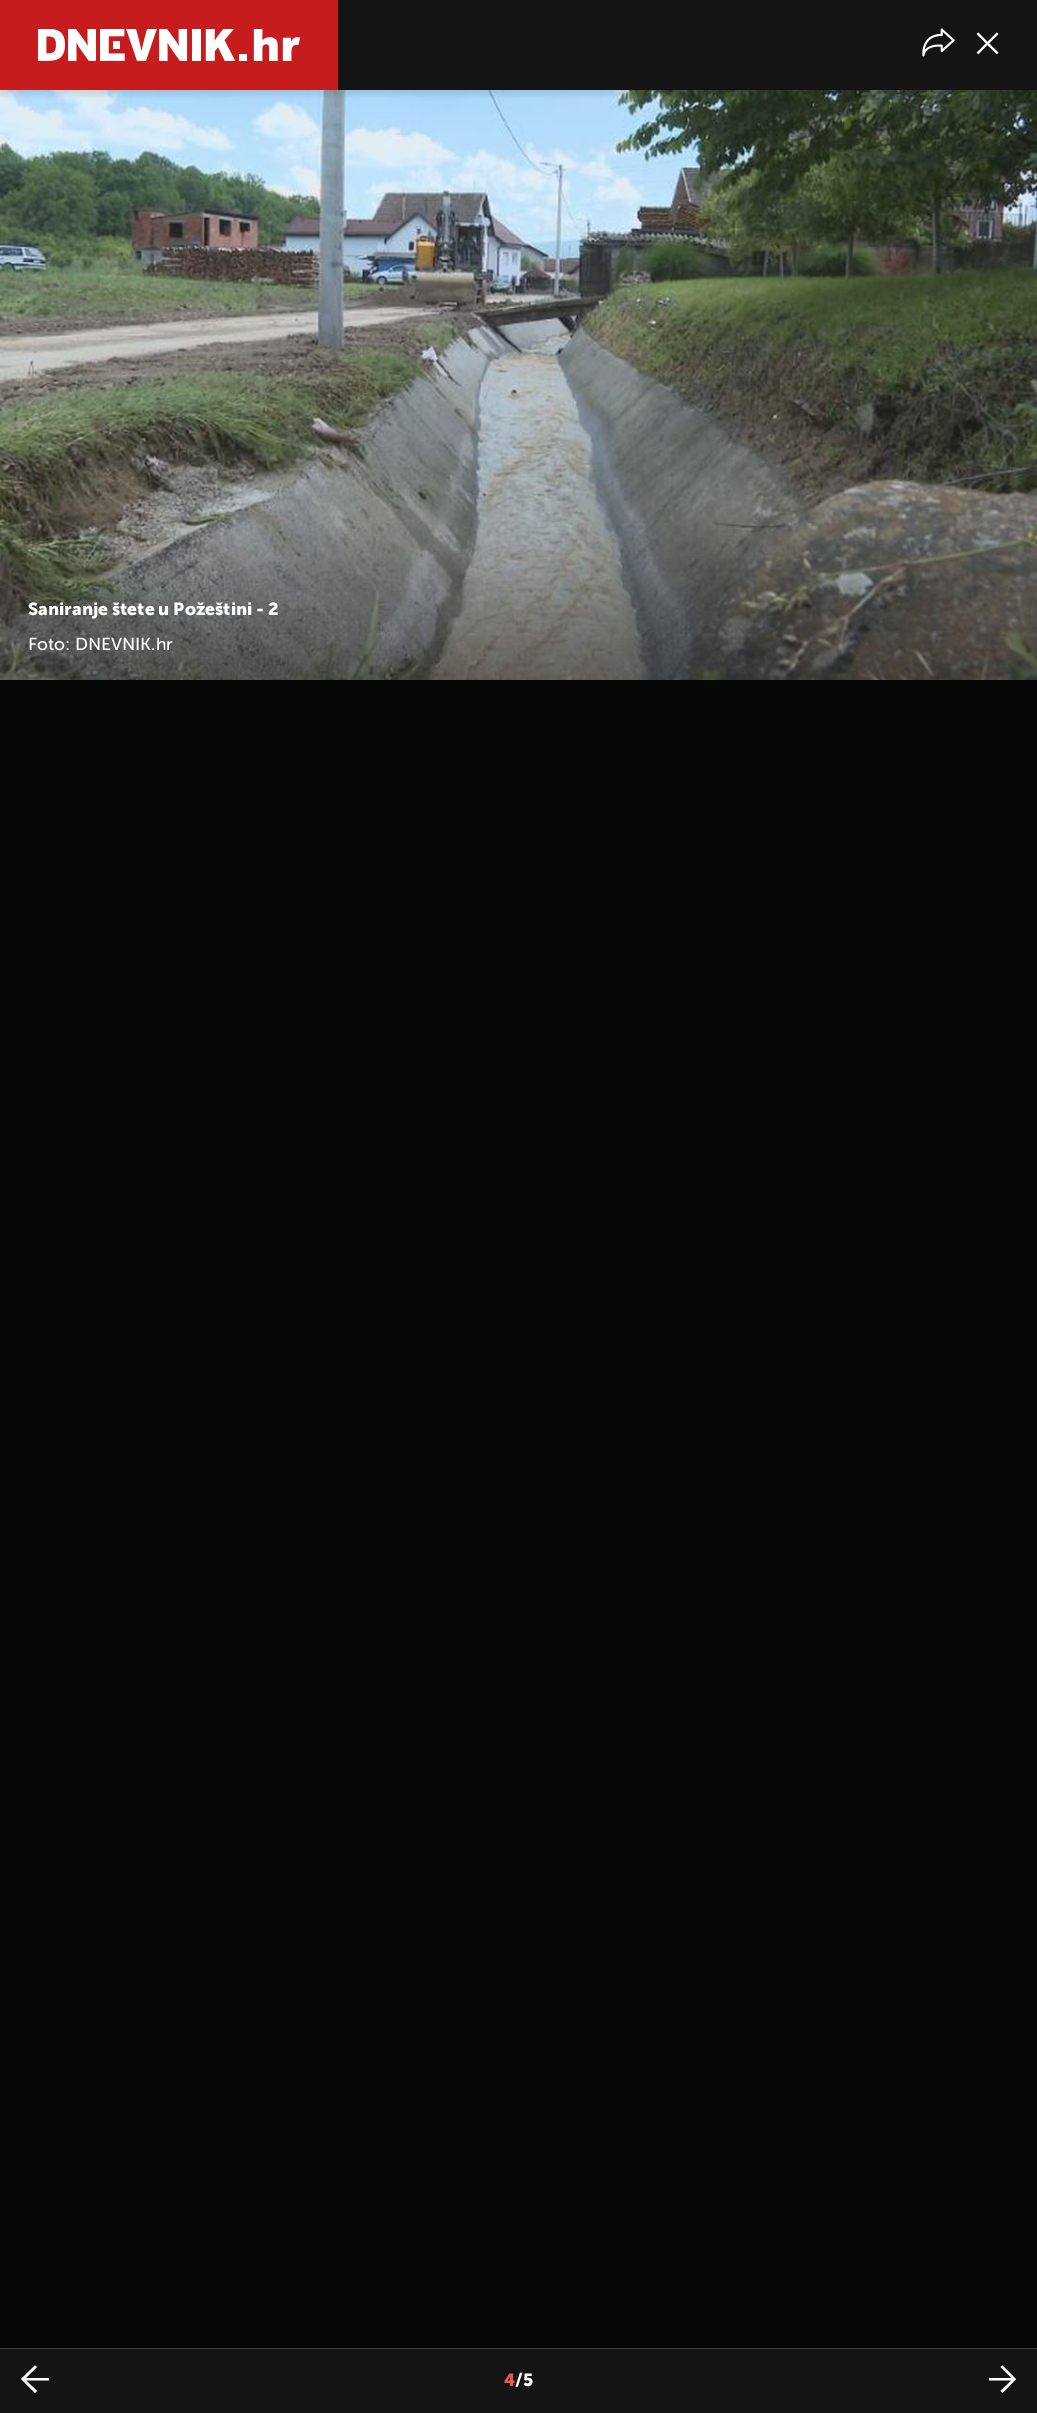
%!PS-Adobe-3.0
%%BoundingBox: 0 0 1037 2413
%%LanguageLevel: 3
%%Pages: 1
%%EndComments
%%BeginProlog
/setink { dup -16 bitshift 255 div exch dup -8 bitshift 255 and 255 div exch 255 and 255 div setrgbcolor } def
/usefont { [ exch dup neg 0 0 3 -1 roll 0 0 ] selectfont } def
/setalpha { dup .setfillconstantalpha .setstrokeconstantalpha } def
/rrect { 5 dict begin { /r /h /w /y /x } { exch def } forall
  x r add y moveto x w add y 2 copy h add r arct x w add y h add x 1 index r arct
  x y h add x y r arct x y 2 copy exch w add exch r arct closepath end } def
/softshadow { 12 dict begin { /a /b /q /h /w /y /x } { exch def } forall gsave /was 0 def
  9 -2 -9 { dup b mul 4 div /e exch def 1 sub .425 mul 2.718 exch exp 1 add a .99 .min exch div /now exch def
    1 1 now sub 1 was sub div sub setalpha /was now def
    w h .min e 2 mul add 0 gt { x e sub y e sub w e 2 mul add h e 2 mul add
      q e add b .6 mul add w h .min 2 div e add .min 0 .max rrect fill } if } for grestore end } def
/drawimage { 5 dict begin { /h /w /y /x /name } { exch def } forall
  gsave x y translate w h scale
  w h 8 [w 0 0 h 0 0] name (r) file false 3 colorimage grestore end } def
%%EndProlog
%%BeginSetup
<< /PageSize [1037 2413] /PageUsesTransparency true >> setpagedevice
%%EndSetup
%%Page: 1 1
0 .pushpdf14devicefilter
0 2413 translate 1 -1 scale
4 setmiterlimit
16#070707 setink
0 0 1037 2413 rectfill
(img4.raw) 0 90 1037 590 drawimage
16#000000 setink
0 5 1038 90 0 2.5 0.1 softshadow
16#141414 setink
338 0 699 90 rectfill
16#C71C1D setink
0 0 338 90 rectfill
(img1.raw) 38 29 262 32 drawimage
(img2.raw) 922 28 33 29 drawimage
(img3.raw) 976 32 23 23 drawimage
/MuseoSans-Regular 17.5 usefont
16#FFFFFF setink
28 615 moveto (Saniranje štete u Požeštini - 2) show
/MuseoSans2-Regular 17.5 usefont
28 650 moveto (Foto: DNEVNIK.hr) show
16#141414 setink
0 2349 1037 64 rectfill
16#3D3D3D setink
0 2348 1037 1 rectfill
16#FFFFFF setink
35 2393 moveto 37 2391 lineto 26 2380.5 lineto 49 2380.5 lineto 49 2378 lineto 26 2378 lineto 37 2367 lineto 35 2365.5 lineto 21 2379 lineto closepath fill
/MuseoSans-Regular 17.5 usefont
16#E95858 setink
504 2386 moveto (4) show
16#FFFFFF setink
515 2386 moveto (/5) show
1002.5 2393 moveto 1000.5 2391 lineto 1011.5 2380.5 lineto 989 2380.5 lineto 989 2378 lineto 1011.5 2378 lineto 1000.5 2367 lineto 1002.5 2365.5 lineto 1016 2379 lineto closepath fill
.poppdf14devicefilter showpage
%%EOF
